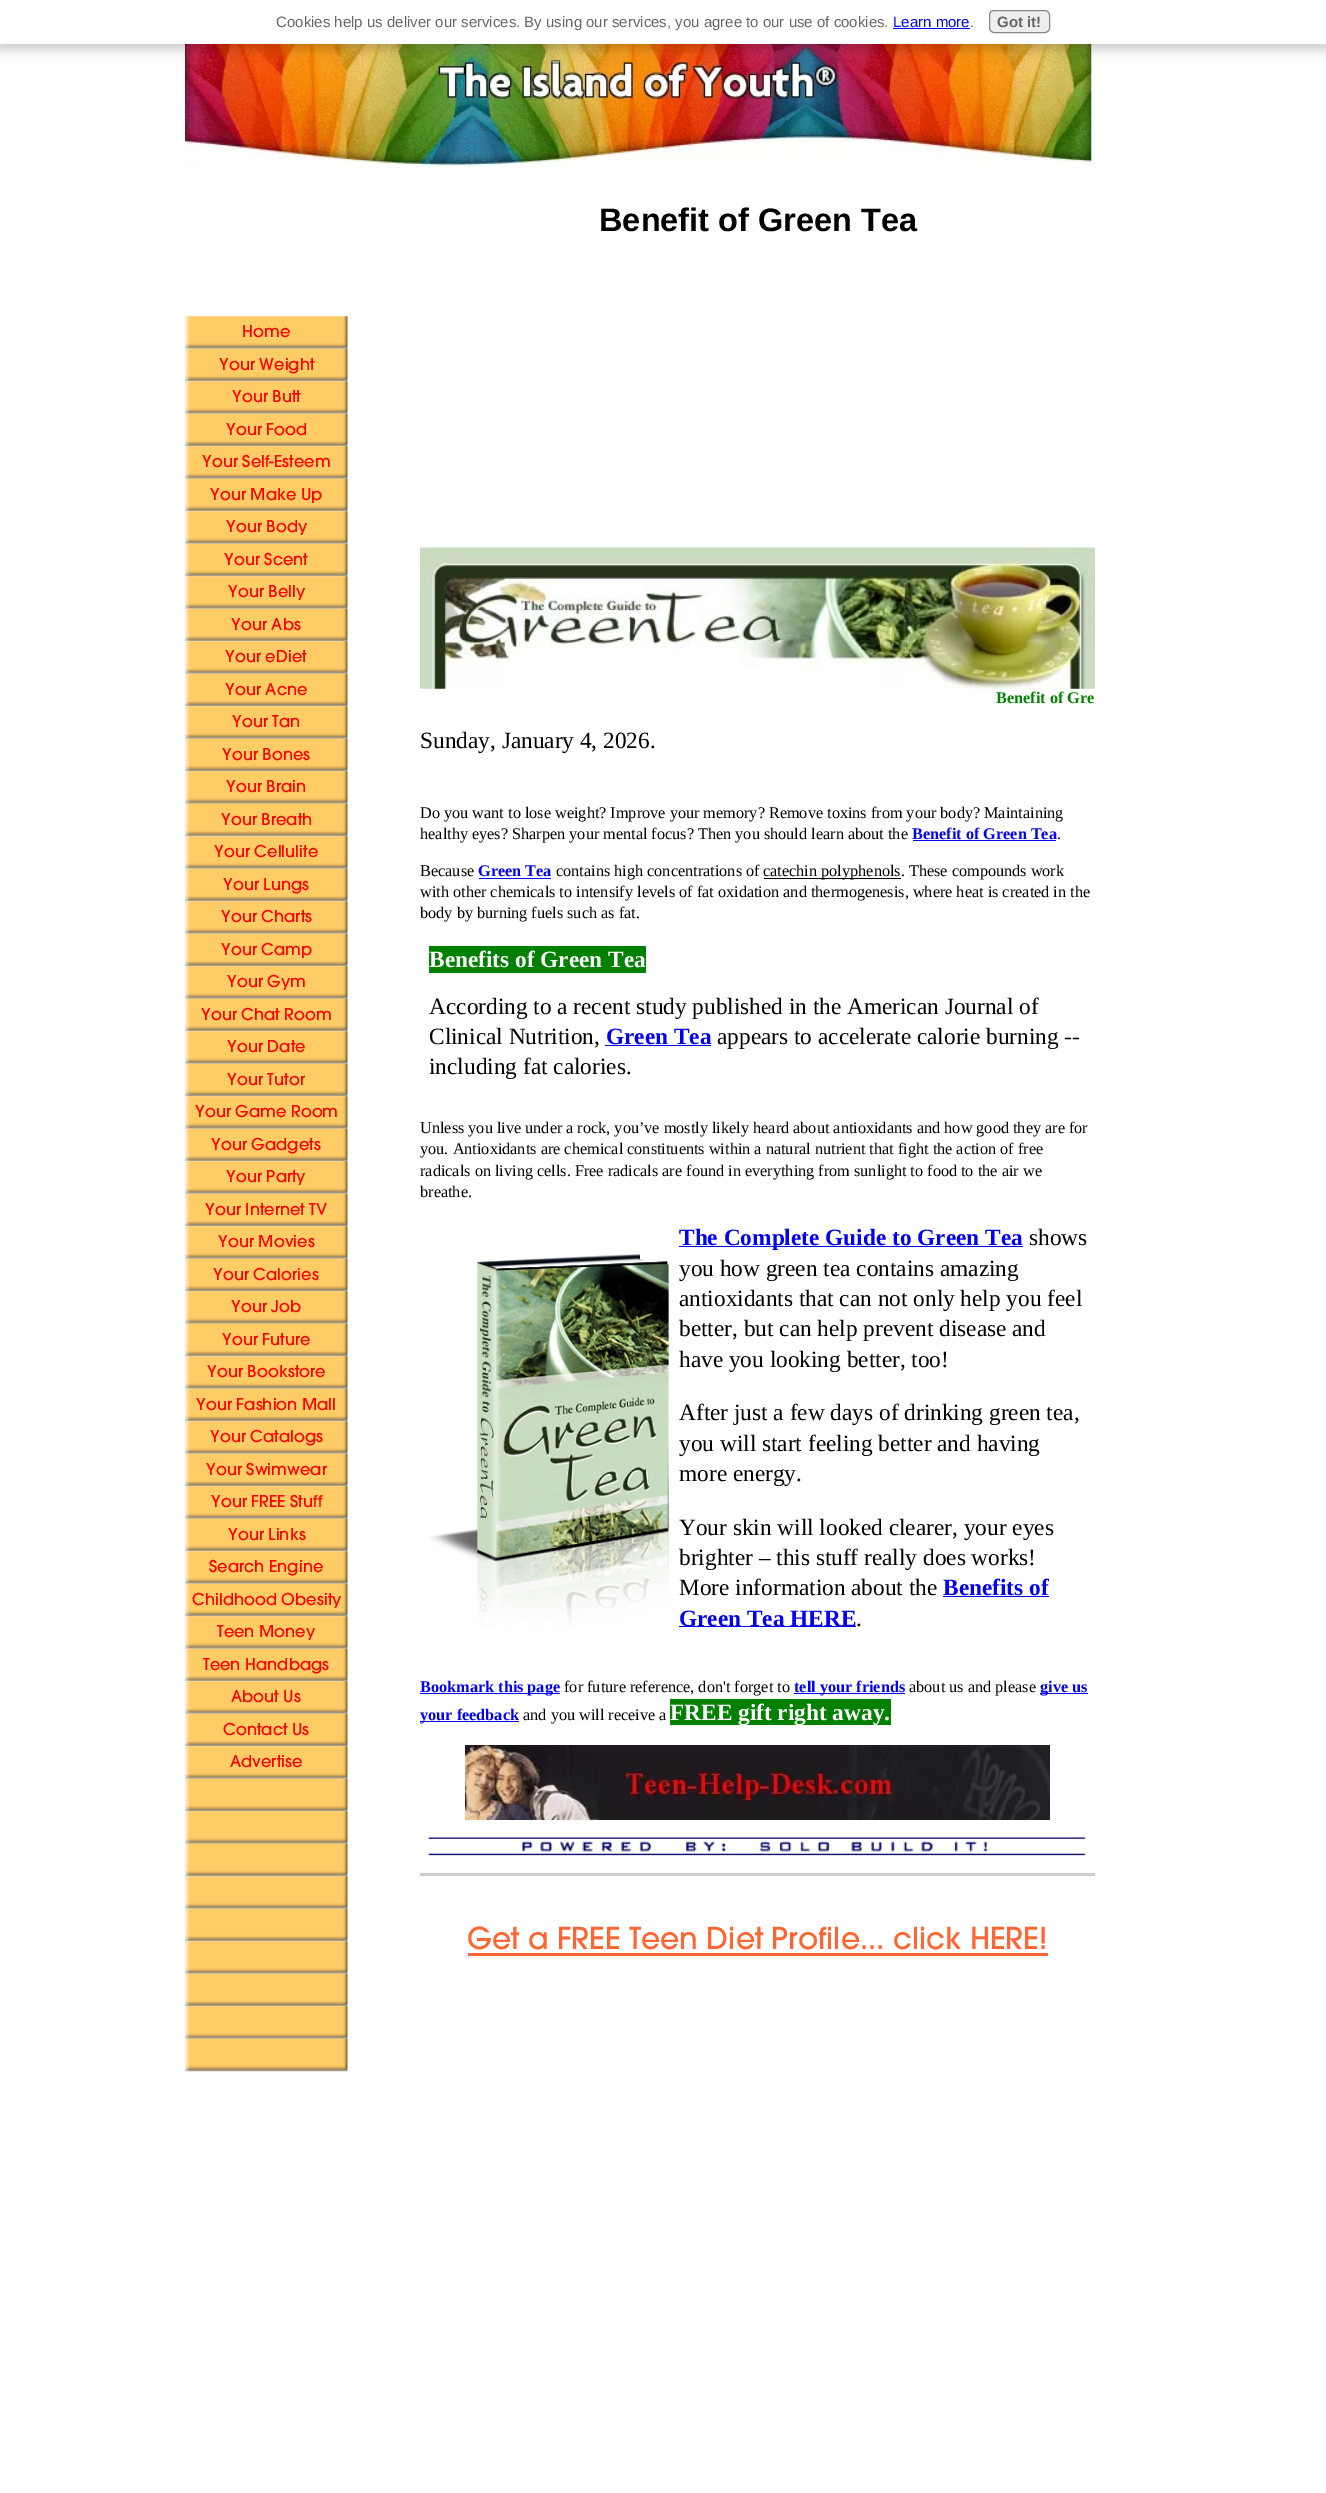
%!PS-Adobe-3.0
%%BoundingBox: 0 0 1326 2493
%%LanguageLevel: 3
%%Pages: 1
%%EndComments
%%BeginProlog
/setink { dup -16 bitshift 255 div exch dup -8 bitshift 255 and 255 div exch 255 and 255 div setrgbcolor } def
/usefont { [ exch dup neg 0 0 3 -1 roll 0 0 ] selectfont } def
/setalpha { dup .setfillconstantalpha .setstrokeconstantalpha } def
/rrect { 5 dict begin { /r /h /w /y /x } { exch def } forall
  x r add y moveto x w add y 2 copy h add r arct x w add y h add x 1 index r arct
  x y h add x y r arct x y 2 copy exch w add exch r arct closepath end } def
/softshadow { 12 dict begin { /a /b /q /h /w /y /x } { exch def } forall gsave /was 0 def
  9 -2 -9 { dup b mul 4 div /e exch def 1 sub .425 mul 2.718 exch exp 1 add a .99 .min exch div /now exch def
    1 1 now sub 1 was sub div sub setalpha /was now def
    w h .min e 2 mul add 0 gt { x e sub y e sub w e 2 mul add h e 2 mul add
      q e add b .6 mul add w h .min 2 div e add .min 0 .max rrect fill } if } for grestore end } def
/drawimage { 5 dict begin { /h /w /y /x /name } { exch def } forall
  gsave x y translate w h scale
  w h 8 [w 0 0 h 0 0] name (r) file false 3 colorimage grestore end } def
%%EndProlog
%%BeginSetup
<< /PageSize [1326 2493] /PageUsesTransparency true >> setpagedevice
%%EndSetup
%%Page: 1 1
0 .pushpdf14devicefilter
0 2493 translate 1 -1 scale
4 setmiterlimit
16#FFFFFF setink
0 0 1326 2493 rectfill
(img1.raw) 185 44 907 125 drawimage
16#000000 setink
-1 4 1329 46 0 6 0.2 softshadow
16#FFFFFF setink
0 0 1326 44 rectfill
/LiberationSans-Regular 15 usefont
16#666666 setink
276 27 moveto (Cookies help us deliver our services. By using our services, you agree to our use of cookies.) show
16#0000FF setink
893 27 moveto (Learn more) show
893 28 77 1 rectfill
16#666666 setink
970 27 moveto (.) show
16#EEEEEE setink
989.5 10.5 60 22 4.5 rrect gsave fill grestore
16#888888 setink
stroke
/LiberationSans-Bold 15 usefont
16#666666 setink
997 27 moveto (Got it!) show
(img2.raw) 185 316 163 33 drawimage
/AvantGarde-Regular 16.25 usefont
16#FF0000 setink
242 337 moveto (Home) show
(img3.raw) 185 348 163 34 drawimage
219 370 moveto (Your Weight) show
(img4.raw) 185 381 163 33 drawimage
232 402 moveto (Your Butt) show
(img3.raw) 185 413 163 34 drawimage
226 435 moveto (Your Food) show
(img4.raw) 185 446 163 33 drawimage
202 467 moveto (Your Self-Esteem) show
(img3.raw) 185 478 163 34 drawimage
210 500 moveto (Your Make Up) show
(img4.raw) 185 511 163 33 drawimage
226 532 moveto (Your Body) show
(img3.raw) 185 543 163 34 drawimage
224 565 moveto (Your Scent) show
(img5.raw) 185 576 163 33 drawimage
228 597 moveto (Your Belly) show
(img3.raw) 185 608 163 34 drawimage
231 630 moveto (Your Abs) show
(img4.raw) 185 641 163 33 drawimage
225 662 moveto (Your eDiet) show
(img3.raw) 185 673 163 34 drawimage
225 695 moveto (Your Acne) show
(img4.raw) 185 706 163 33 drawimage
232 727 moveto (Your Tan) show
(img3.raw) 185 738 163 34 drawimage
222 760 moveto (Your Bones) show
(img4.raw) 185 771 163 33 drawimage
226 792 moveto (Your Brain) show
(img3.raw) 185 803 163 34 drawimage
221 825 moveto (Your Breath) show
(img4.raw) 185 836 163 33 drawimage
214 857 moveto (Your Cellulite) show
(img3.raw) 185 868 163 34 drawimage
223 890 moveto (Your Lungs) show
(img4.raw) 185 901 163 33 drawimage
221 922 moveto (Your Charts) show
(img3.raw) 185 933 163 34 drawimage
221 955 moveto (Your Camp) show
(img4.raw) 185 966 163 33 drawimage
227 987 moveto (Your Gym) show
(img3.raw) 185 998 163 34 drawimage
201 1020 moveto (Your Chat Room) show
(img4.raw) 185 1031 163 33 drawimage
227 1052 moveto (Your Date) show
(img3.raw) 185 1063 163 34 drawimage
227 1085 moveto (Your Tutor) show
(img4.raw) 185 1096 163 33 drawimage
195 1117 moveto (Your Game Room) show
(img3.raw) 185 1128 163 34 drawimage
211 1150 moveto (Your Gadgets) show
(img5.raw) 185 1161 163 33 drawimage
226 1182 moveto (Your Party) show
(img3.raw) 185 1193 163 34 drawimage
205 1215 moveto (Your Internet TV) show
(img4.raw) 185 1226 163 33 drawimage
218 1247 moveto (Your Movies) show
(img3.raw) 185 1258 163 34 drawimage
213 1280 moveto (Your Calories) show
(img4.raw) 185 1291 163 33 drawimage
231 1312 moveto (Your Job) show
(img3.raw) 185 1323 163 34 drawimage
222 1345 moveto (Your Future) show
(img4.raw) 185 1356 163 33 drawimage
207 1377 moveto (Your Bookstore) show
(img3.raw) 185 1388 163 34 drawimage
196 1410 moveto (Your Fashion Mall) show
(img4.raw) 185 1421 163 33 drawimage
210 1442 moveto (Your Catalogs) show
(img3.raw) 185 1453 163 34 drawimage
206 1475 moveto (Your Swimwear) show
(img4.raw) 185 1486 163 33 drawimage
211 1507 moveto (Your FREE Stuff) show
(img3.raw) 185 1518 163 34 drawimage
228 1540 moveto (Your Links) show
(img5.raw) 185 1551 163 33 drawimage
209 1572 moveto (Search Engine) show
(img3.raw) 185 1583 163 34 drawimage
192 1605 moveto (Childhood Obesity) show
(img4.raw) 185 1616 163 33 drawimage
217 1637 moveto (Teen Money) show
(img3.raw) 185 1648 163 34 drawimage
203 1670 moveto (Teen Handbags) show
(img4.raw) 185 1681 163 33 drawimage
231 1702 moveto (About Us) show
(img3.raw) 185 1713 163 34 drawimage
223 1735 moveto (Contact Us) show
(img4.raw) 185 1746 163 33 drawimage
230 1767 moveto (Advertise) show
(img3.raw) 185 1778 163 34 drawimage
(img4.raw) 185 1811 163 33 drawimage
(img6.raw) 185 1843 163 34 drawimage
(img4.raw) 185 1876 163 33 drawimage
(img3.raw) 185 1908 163 34 drawimage
(img4.raw) 185 1941 163 33 drawimage
(img3.raw) 185 1973 163 34 drawimage
(img4.raw) 185 2006 163 33 drawimage
(img3.raw) 185 2038 163 34 drawimage
/LiberationSans-Bold 32.5 usefont
16#000000 setink
599 231 moveto (Benefit of Green Tea) show
(img7.raw) 420 547 675 142 drawimage
/LiberationSerif-Bold 16.25 usefont
16#008000 setink
996 703 moveto (Benefit of Gre) show
/LiberationSerif-Regular 23.3 usefont
16#000000 setink
420 748 moveto (Sunday, January 4, 2026.) show
/LiberationSerif-Regular 16.25 usefont
420 818 moveto (Do you want to lose weight? Improve your memory? Remove toxins from your body? Maintaining) show
420 839 moveto (healthy eyes? Sharpen your mental focus? Then you should learn about the) show
/LiberationSerif-Bold 16.25 usefont
16#0000EE setink
912 839 moveto (Benefit of Green Tea) show
/LiberationSerif-Regular 16.25 usefont
16#000000 setink
1057 839 moveto (.) show
16#0000EE setink
913 840 143 1 rectfill
16#000000 setink
420 876 moveto (Because) show
/LiberationSerif-Bold 16.25 usefont
16#0000EE setink
478 876 moveto (Green Tea) show
479 878 72 1 rectfill
/LiberationSerif-Regular 16.25 usefont
16#000000 setink
556 876 moveto (contains high concentrations of) show
764 878 137 1 rectfill
[
    [(catechin polyphenols. These compounds work) 763 876]
    [(with other chemicals to intensify levels of fat oxidation and thermogenesis, where heat is created in the) 420 897]
    [(body by burning fuels such as fat.) 420 918]
] { aload pop moveto show } forall
16#008000 setink
429 946 217 27 rectfill
/LiberationSerif-Bold 23.3 usefont
16#FFFFFF setink
429 967 moveto (Benefits of Green Tea) show
/LiberationSerif-Regular 23.3 usefont
16#000000 setink
429 1014 moveto (According to a recent study published in the American Journal of) show
429 1044 moveto (Clinical Nutrition,) show
/LiberationSerif-Bold 23.3 usefont
16#0000EE setink
606 1044 moveto (Green Tea) show
605 1045 106 1 rectfill
/LiberationSerif-Regular 23.3 usefont
16#000000 setink
717 1044 moveto (appears to accelerate calorie burning --) show
429 1074 moveto (including fat calories.) show
/LiberationSerif-Regular 16.25 usefont
[
    [(Unless you live under a rock, you’ve mostly likely heard about antioxidants and how good they are for) 420 1133]
    [(you. Antioxidants are chemical constituents within a natural nutrient that fight the action of free) 420 1154]
    [(radicals on living cells. Free radicals are found in everything from sunlight to food to the air we) 420 1176]
    [(breathe.) 420 1197]
] { aload pop moveto show } forall
(img8.raw) 429 1253 242 374 drawimage
16#0000EE setink
679 1246 344 1 rectfill
/LiberationSerif-Bold 23.3 usefont
679 1245 moveto (The Complete Guide to Green Tea) show
/LiberationSerif-Regular 23.3 usefont
16#000000 setink
[
    [(shows) 1029 1245]
    [(you how green tea contains amazing) 679 1276]
    [(antioxidants that can not only help you feel) 679 1306]
    [(better, but can help prevent disease and) 679 1336]
    [(have you looking better, too!) 679 1367]
    [(After just a few days of drinking green tea,) 679 1420]
    [(you will start feeling better and having) 679 1451]
    [(more energy.) 679 1481]
    [(Your skin will looked clearer, your eyes) 679 1535]
    [(brighter – this stuff really does works!) 679 1565]
    [(More information about the) 679 1595]
] { aload pop moveto show } forall
/LiberationSerif-Bold 23.3 usefont
16#0000EE setink
943 1595 moveto (Benefits of) show
943 1596 106 1 rectfill
679 1626 177 1 rectfill
679 1626 moveto (Green Tea HERE) show
/LiberationSerif-Regular 23.3 usefont
16#000000 setink
856 1626 moveto (.) show
16#0000EE setink
420 1693 140 1 rectfill
/LiberationSerif-Bold 16.25 usefont
420 1692 moveto (Bookmark this page) show
/LiberationSerif-Regular 16.25 usefont
16#000000 setink
564 1692 moveto (for future reference, don't forget to) show
16#0000EE setink
794 1693 111 1 rectfill
/LiberationSerif-Bold 16.25 usefont
794 1692 moveto (tell your friends) show
/LiberationSerif-Regular 16.25 usefont
16#000000 setink
909 1692 moveto (about us and please) show
16#0000EE setink
1040 1693 48 1 rectfill
/LiberationSerif-Bold 16.25 usefont
1040 1692 moveto (give us) show
420 1721 99 1 rectfill
420 1720 moveto (your feedback) show
/LiberationSerif-Regular 16.25 usefont
16#000000 setink
523 1720 moveto (and you will receive a) show
16#008000 setink
670 1699 221 26 rectfill
/LiberationSerif-Bold 23.3 usefont
16#FFFFFF setink
670 1720 moveto (FREE gift right away.) show
(img9.raw) 465 1745 585 75 drawimage
(img10.raw) 428 1837 658 19 drawimage
16#CCCCCC setink
420 1873 675 3 rectfill
/AvantGarde-Regular 30 usefont
16#FF6633 setink
467 1949 moveto (Get a FREE Teen Diet Profile... click HERE!) show
468 1953 580 3 rectfill
.poppdf14devicefilter showpage
%%EOF
